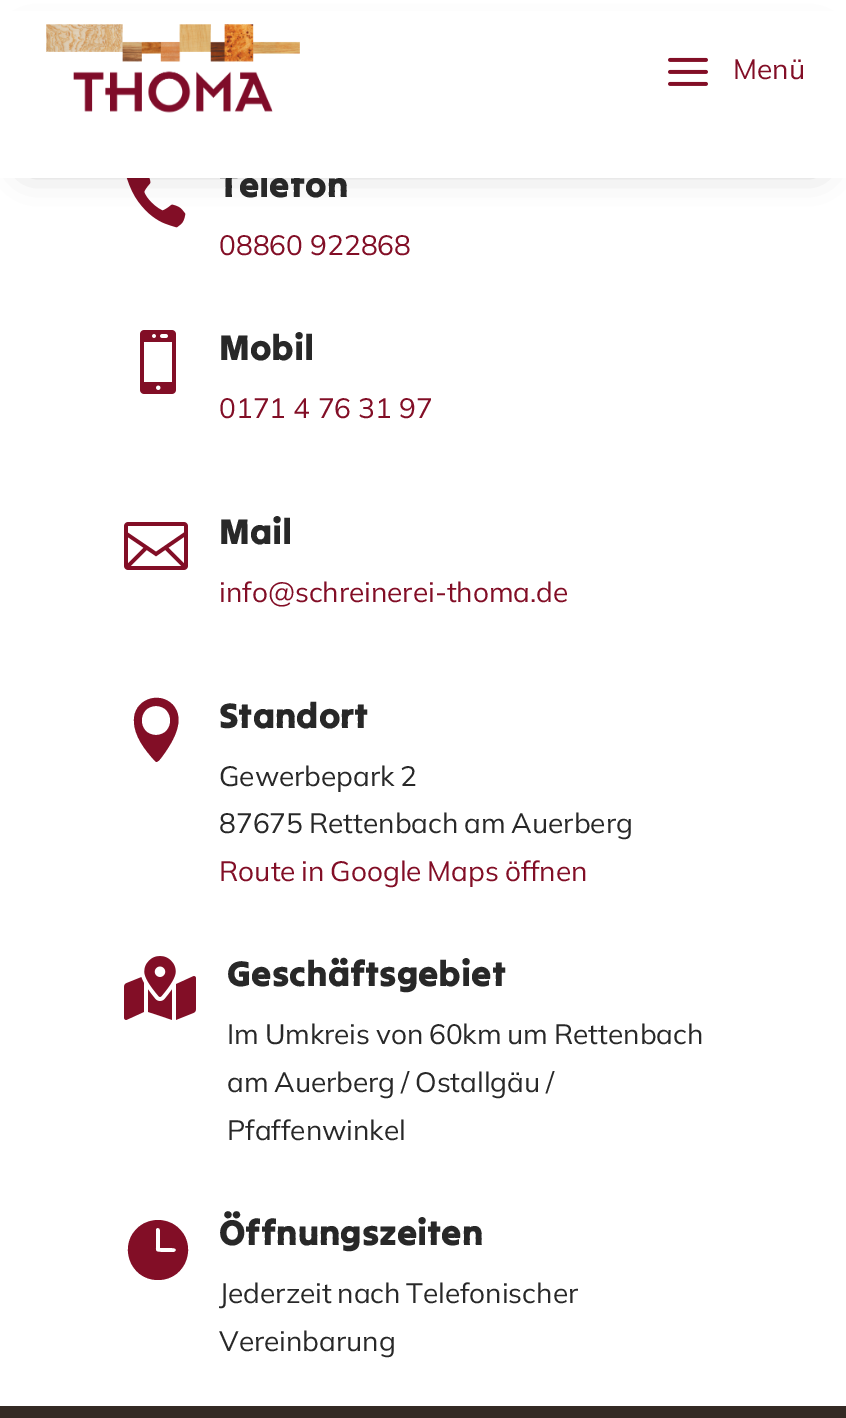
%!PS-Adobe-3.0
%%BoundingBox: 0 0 846 1418
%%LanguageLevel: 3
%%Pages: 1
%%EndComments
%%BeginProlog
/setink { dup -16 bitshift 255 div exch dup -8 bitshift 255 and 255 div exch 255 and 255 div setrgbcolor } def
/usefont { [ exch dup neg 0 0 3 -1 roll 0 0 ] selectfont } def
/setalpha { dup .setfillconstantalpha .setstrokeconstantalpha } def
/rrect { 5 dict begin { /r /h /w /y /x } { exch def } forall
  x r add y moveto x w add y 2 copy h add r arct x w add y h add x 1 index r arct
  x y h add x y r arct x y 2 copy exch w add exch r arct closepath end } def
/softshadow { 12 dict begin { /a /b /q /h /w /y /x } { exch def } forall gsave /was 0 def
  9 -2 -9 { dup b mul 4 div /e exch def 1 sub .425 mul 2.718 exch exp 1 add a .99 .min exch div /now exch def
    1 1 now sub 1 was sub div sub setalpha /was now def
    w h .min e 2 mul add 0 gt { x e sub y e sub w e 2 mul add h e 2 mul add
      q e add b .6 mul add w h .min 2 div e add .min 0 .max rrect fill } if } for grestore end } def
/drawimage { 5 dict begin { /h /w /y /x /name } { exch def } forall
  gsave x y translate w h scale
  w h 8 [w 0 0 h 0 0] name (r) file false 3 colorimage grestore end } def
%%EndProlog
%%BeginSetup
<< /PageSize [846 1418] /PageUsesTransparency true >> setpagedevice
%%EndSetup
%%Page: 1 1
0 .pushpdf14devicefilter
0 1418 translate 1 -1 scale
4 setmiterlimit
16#FFFFFF setink
0 0 846 1418 rectfill
(img3.raw) 126 178 60 50 drawimage
16#000000 setink
28 44 790 122 0 18 0.3 softshadow
/TiltWarp-Regular 36 usefont
16#282828 setink
219 197 moveto (Telefon) show
16#FFFFFF setink
0 11 846 167 rectfill
(img1.raw) 46 24 254 89 drawimage
(img2.raw) 668 57 40 29 drawimage
/Mulish-Regular 28 usefont
16#820E26 setink
733 79 moveto (Menü) show
219 255 moveto (08860 922868) show
(img4.raw) 140 330 36 64 drawimage
/TiltWarp-Regular 36 usefont
16#282828 setink
219 360 moveto (Mobil) show
/Mulish-Regular 28 usefont
16#820E26 setink
219 418 moveto (0171 4 76 31 97) show
(img5.raw) 124 522 64 48 drawimage
/TiltWarp-Regular 36 usefont
16#282828 setink
219 544 moveto (Mail) show
/Mulish-Regular 28 usefont
16#820E26 setink
219 602 moveto (info@schreinerei-thoma.de) show
155 761 moveto 156 762 lineto 159 762 163 755 164 754 curveto 173 741 186 720 173 705 curveto 159 690 133 700 134 721 curveto 134 736 145 750 155 761 curveto closepath 156 706 moveto 175 706 175 735 156 735 curveto 137 735 137 706 156 706 curveto closepath fill
/TiltWarp-Regular 36 usefont
16#282828 setink
219 728 moveto (Standort) show
/Mulish-Regular 28 usefont
219 786 moveto -2 0 32 (Gewerbepark 2) widthshow
219 833 moveto -1.5 0 32 (87675 Rettenbach am Auerberg) widthshow
16#820E26 setink
219 881 moveto -1.5 0 32 (Route in Google Maps öffnen) widthshow
(img6.raw) 124 956 72 64 drawimage
/TiltWarp-Regular 36 usefont
16#282828 setink
227 986 moveto (Geschäftsgebiet) show
/Mulish-Regular 28 usefont
227 1044 moveto -1.5 0 32 (Im Umkreis von 60km um Rettenbach) widthshow
227 1092 moveto -1.5 0 32 (am Auerberg / Ostallgäu /) widthshow
227 1140 moveto (Pfaffenwinkel) show
16#820E26 setink
158 1220 moveto 152 1220 145 1222 140 1226 curveto 117 1243 129 1280 158 1280 curveto 187 1280 199 1243 176 1226 curveto 171 1222 164 1220 158 1220 curveto closepath 174 1252 moveto 161 1252 lineto 154 1252 156 1250 156 1243 curveto 156 1229 lineto 157 1227 160 1228 160 1230 curveto 160 1248 lineto 172 1248 lineto 178 1248 176 1252 174 1252 curveto closepath fill
/TiltWarp-Regular 36 usefont
16#282828 setink
219 1245 moveto (Öffnungszeiten) show
/Mulish-Regular 28 usefont
219 1303 moveto -2 0 32 (Jederzeit nach Telefonischer) widthshow
219 1351 moveto (Vereinbarung) show
16#342A24 setink
0 1406 846 12 rectfill
.poppdf14devicefilter showpage
%%EOF
